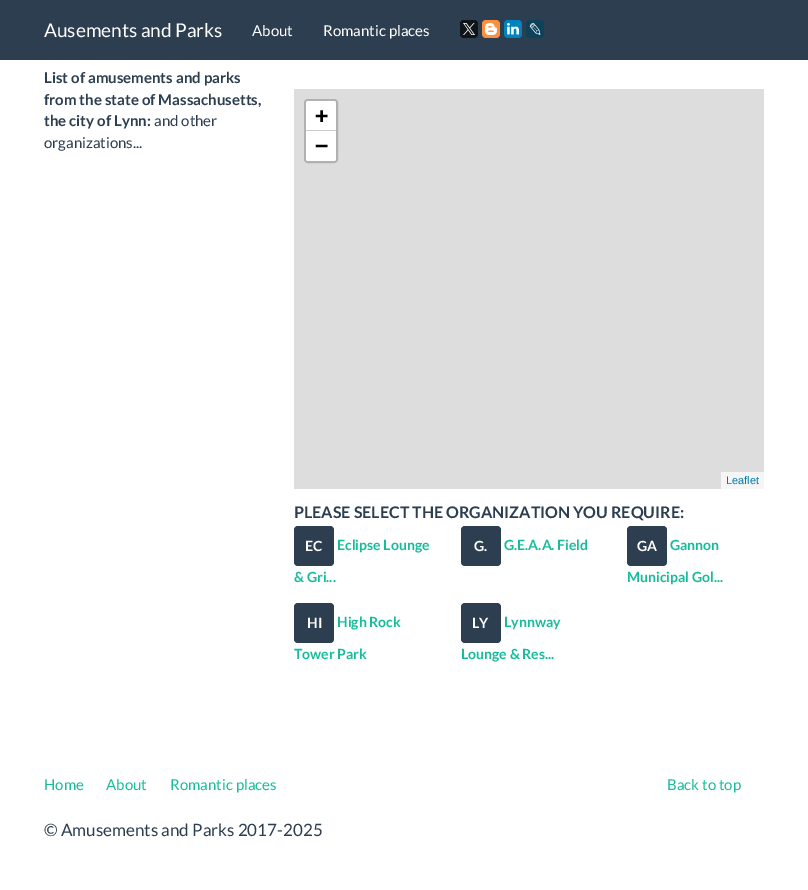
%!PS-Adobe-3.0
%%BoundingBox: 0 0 808 890
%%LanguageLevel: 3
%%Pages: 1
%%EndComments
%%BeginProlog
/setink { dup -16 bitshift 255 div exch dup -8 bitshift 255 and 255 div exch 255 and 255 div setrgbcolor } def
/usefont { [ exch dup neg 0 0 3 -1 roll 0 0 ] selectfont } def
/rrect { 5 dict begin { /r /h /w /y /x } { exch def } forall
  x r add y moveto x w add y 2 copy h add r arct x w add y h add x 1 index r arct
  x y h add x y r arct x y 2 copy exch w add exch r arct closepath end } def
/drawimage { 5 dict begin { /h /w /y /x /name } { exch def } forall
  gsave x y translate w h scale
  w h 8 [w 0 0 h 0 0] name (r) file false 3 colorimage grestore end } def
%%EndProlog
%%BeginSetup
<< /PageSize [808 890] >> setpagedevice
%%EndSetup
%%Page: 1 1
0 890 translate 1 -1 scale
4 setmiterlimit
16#FFFFFF setink
0 0 808 890 rectfill
16#2C3E50 setink
0 0 808 60 rectfill
/Lato-Regular 19 usefont
16#FFFFFF setink
44 37 moveto (Ausements and Parks) show
/Lato-Regular 15 usefont
252 36 moveto (About) show
323 36 moveto (Romantic places) show
16#0F1419 setink
460 20 18 18 4 rrect fill
(img1.raw) 463 23 12 12 drawimage
16#FB8F3D setink
482 20 18 18 4 rrect fill
(img2.raw) 485 23 12 12 drawimage
16#0083BE setink
504 20 18 18 4 rrect fill
(img3.raw) 507 23 12 12 drawimage
16#0D425A setink
526 20 18 18 4 rrect fill
(img4.raw) 529 23 12 12 drawimage
/Lato-Bold 15 usefont
16#2C3E50 setink
[
    [(List of amusements and parks) 44 83]
    [(from the state of Massachusetts,) 44 105]
    [(the city of Lynn:) 44 126]
] { aload pop moveto show } forall
/Lato-Regular 15 usefont
154 126 moveto (and other) show
44 148 moveto (organizations...) show
16#DDDDDD setink
294 89 470 400 rectfill
16#B1B1B1 setink
2 setlinewidth
305 100 32 62 3 rrect stroke
16#FFFFFF setink
308 101 moveto 334 101 lineto 335 101 336 102 336 103 curveto 336 131 lineto 306 131 lineto 306 103 lineto 306 102 307 101 308 101 curveto closepath fill
16#CCCCCC setink
306 130 30 1 rectfill
/DejaVuSansMono-Bold 22 usefont
16#000000 setink
315 123 moveto (+) show
16#FFFFFF setink
306 131 moveto 336 131 lineto 336 159 lineto 336 160 335 161 334 161 curveto 308 161 lineto 307 161 306 160 306 159 curveto closepath fill
16#000000 setink
315 153 moveto (−) show
16#F5F5F5 setink
721 472 43 17 rectfill
/LiberationSans-Regular 11 usefont
16#0078A8 setink
726 484 moveto (Leaflet) show
/Lato-Bold 16 usefont
16#2C3E50 setink
294 518 moveto (PLEASE SELECT THE ORGANIZATION YOU REQUIRE:) show
294 526 40 40 4 rrect fill
/Lato-Bold 14 usefont
16#FFFFFF setink
305 551 moveto (EC) show
16#18BC9C setink
337 550 moveto (Eclipse Lounge) show
294 582 moveto (& Gri...) show
16#2C3E50 setink
461 526 40 40 4 rrect fill
16#FFFFFF setink
474 551 moveto (G.) show
16#18BC9C setink
504 550 moveto (G.E.A.A. Field) show
16#2C3E50 setink
627 526 40 40 4 rrect fill
16#FFFFFF setink
637 551 moveto (GA) show
16#18BC9C setink
670 550 moveto (Gannon) show
627 582 moveto (Municipal Gol...) show
16#2C3E50 setink
294 603 40 40 4 rrect fill
16#FFFFFF setink
307 628 moveto (HI) show
16#18BC9C setink
337 627 moveto (High Rock) show
294 659 moveto (Tower Park) show
16#2C3E50 setink
461 603 40 40 4 rrect fill
16#FFFFFF setink
472 628 moveto (LY) show
16#18BC9C setink
504 627 moveto (Lynnway) show
461 659 moveto (Lounge & Res...) show
/Lato-Regular 15 usefont
[
    [(Home) 44 790]
    [(About) 106 790]
    [(Romantic places) 170 790]
    [(Back to top) 667 790]
] { aload pop moveto show } forall
/Lato-Regular 17 usefont
16#2C3E50 setink
44 836 moveto (© Amusements and Parks 2017-2025) show
showpage
%%EOF
